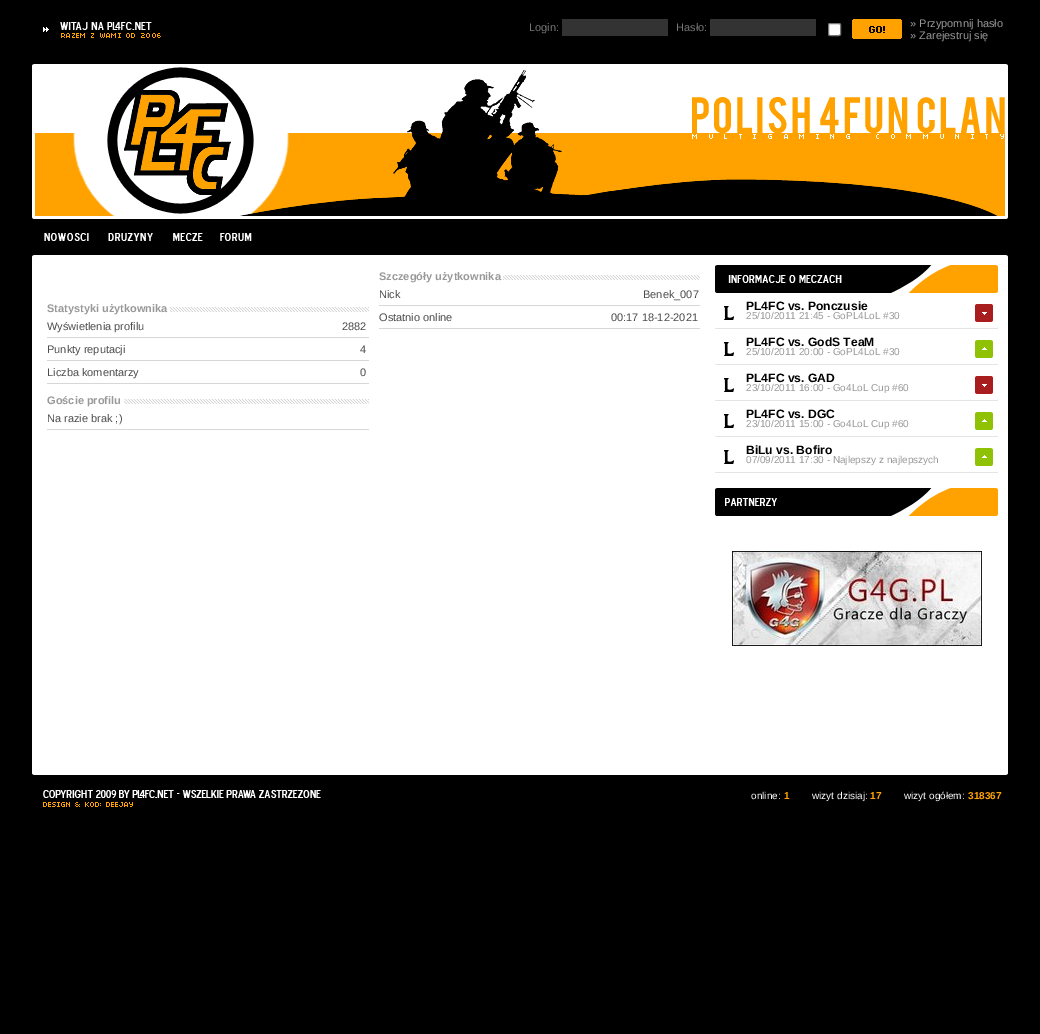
%!PS-Adobe-3.0
%%BoundingBox: 0 0 1040 1034
%%LanguageLevel: 3
%%Pages: 1
%%EndComments
%%BeginProlog
/setink { dup -16 bitshift 255 div exch dup -8 bitshift 255 and 255 div exch 255 and 255 div setrgbcolor } def
/usefont { [ exch dup neg 0 0 3 -1 roll 0 0 ] selectfont } def
/rrect { 5 dict begin { /r /h /w /y /x } { exch def } forall
  x r add y moveto x w add y 2 copy h add r arct x w add y h add x 1 index r arct
  x y h add x y r arct x y 2 copy exch w add exch r arct closepath end } def
/drawimage { 5 dict begin { /h /w /y /x /name } { exch def } forall
  gsave x y translate w h scale
  w h 8 [w 0 0 h 0 0] name (r) file false 3 colorimage grestore end } def
%%EndProlog
%%BeginSetup
<< /PageSize [1040 1034] >> setpagedevice
%%EndSetup
%%Page: 1 1
0 1034 translate 1 -1 scale
4 setmiterlimit
16#000000 setink
0 0 1040 1034 rectfill
16#FFFFFF setink
32 255 976 520 rectfill
(img1.raw) 43 22 118 16 drawimage
/LiberationSans-Regular 11 usefont
16#777777 setink
529 31 moveto (Login:) show
16#333333 setink
562 19 106 17 rectfill
16#777777 setink
676 31 moveto (Hasło:) show
16#333333 setink
710 19 106 17 rectfill
16#FFFFFF setink
828.5 23.5 12 12 1.5 rrect gsave fill grestore
16#767676 setink
stroke
(img2.raw) 852 19 50 20 drawimage
16#999999 setink
910 27 moveto (» Przypomnij hasło) show
910 39 moveto (» Zarejestruj się) show
(img3.raw) 289 64 403 155 drawimage
(img4.raw) 32 64 257 155 drawimage
(img5.raw) 692 64 316 155 drawimage
(img6.raw) 239 70 759 146 drawimage
(img7.raw) 44 233 45 8 drawimage
(img8.raw) 108 233 45 8 drawimage
(img9.raw) 173 233 30 8 drawimage
(img10.raw) 220 233 32 8 drawimage
(img11.raw) 503 275 197 5 drawimage
/LiberationSans-Bold 11 usefont
379 280 moveto (Szczegóły użytkownika) show
16#D7D7D7 setink
379 305 321 1 rectfill
/LiberationSans-Regular 11 usefont
16#4C4C4C setink
379 298 moveto (Nick) show
643 298 moveto (Benek_007) show
16#D7D7D7 setink
379 328 321 1 rectfill
16#4C4C4C setink
379 321 moveto (Ostatnio online) show
611 321 moveto (00:17 18-12-2021) show
(img12.raw) 170 307 199 5 drawimage
/LiberationSans-Bold 11 usefont
16#999999 setink
47 312 moveto (Statystyki użytkownika) show
16#D7D7D7 setink
47 337 322 1 rectfill
/LiberationSans-Regular 11 usefont
16#4C4C4C setink
47 330 moveto (Wyświetlenia profilu) show
342 330 moveto (2882) show
16#D7D7D7 setink
47 360 322 1 rectfill
16#4C4C4C setink
47 353 moveto (Punkty reputacji) show
360 353 moveto (4) show
16#D7D7D7 setink
47 383 322 1 rectfill
16#4C4C4C setink
47 376 moveto (Liczba komentarzy) show
360 376 moveto (0) show
(img13.raw) 124 399 245 5 drawimage
/LiberationSans-Bold 11 usefont
16#999999 setink
47 404 moveto (Goście profilu) show
16#D7D7D7 setink
47 429 322 1 rectfill
/LiberationSans-Regular 11 usefont
16#4C4C4C setink
47 422 moveto (Na razie brak ;\)) show
(img14.raw) 32 255 2 2 drawimage
(img15.raw) 1006 255 2 2 drawimage
16#000000 setink
717 265 174 28 rectfill
(img16.raw) 715 265 2 28 drawimage
(img17.raw) 728 275 114 8 drawimage
(img18.raw) 891 265 107 28 drawimage
16#E5E5E5 setink
715 328 283 1 rectfill
(img19.raw) 724 306 10 14 drawimage
/LiberationSans-Bold 12.1 usefont
16#000000 setink
746 310 moveto (PL4FC vs. Ponczusie) show
(img20.raw) 975 304 18 18 drawimage
/LiberationSans-Regular 10 usefont
16#999999 setink
746 319 moveto (25/10/2011 21:45 - GoPL4LoL #30) show
16#E5E5E5 setink
715 364 283 1 rectfill
(img19.raw) 724 342 10 14 drawimage
/LiberationSans-Bold 12.1 usefont
16#000000 setink
746 346 moveto (PL4FC vs. GodS TeaM) show
(img21.raw) 975 340 18 18 drawimage
/LiberationSans-Regular 10 usefont
16#999999 setink
746 355 moveto (25/10/2011 20:00 - GoPL4LoL #30) show
16#E5E5E5 setink
715 400 283 1 rectfill
(img19.raw) 724 378 10 14 drawimage
/LiberationSans-Bold 12.1 usefont
16#000000 setink
746 382 moveto (PL4FC vs. GAD) show
(img20.raw) 975 376 18 18 drawimage
/LiberationSans-Regular 10 usefont
16#999999 setink
746 391 moveto (23/10/2011 16:00 - Go4LoL Cup #60) show
16#E5E5E5 setink
715 436 283 1 rectfill
(img19.raw) 724 414 10 14 drawimage
/LiberationSans-Bold 12.1 usefont
16#000000 setink
746 418 moveto (PL4FC vs. DGC) show
(img21.raw) 975 412 18 18 drawimage
/LiberationSans-Regular 10 usefont
16#999999 setink
746 427 moveto (23/10/2011 15:00 - Go4LoL Cup #60) show
16#E5E5E5 setink
715 472 283 1 rectfill
(img19.raw) 724 450 10 14 drawimage
/LiberationSans-Bold 12.1 usefont
16#000000 setink
746 454 moveto (BiLu vs. Bofiro) show
(img21.raw) 975 448 18 18 drawimage
/LiberationSans-Regular 10 usefont
16#999999 setink
746 463 moveto (07/09/2011 17:30 - Najlepszy z najlepszych) show
16#000000 setink
717 488 174 28 rectfill
(img16.raw) 715 488 2 28 drawimage
(img22.raw) 725 498 52 8 drawimage
(img18.raw) 891 488 107 28 drawimage
(img23.raw) 732 551 250 95 drawimage
(img24.raw) 32 773 2 2 drawimage
(img25.raw) 1006 773 2 2 drawimage
(img26.raw) 43 790 278 17 drawimage
16#FFFFFF setink
751 799 moveto (online:) show
/LiberationSans-Bold 10 usefont
16#FFA200 setink
784 799 moveto (1) show
/LiberationSans-Regular 10 usefont
16#FFFFFF setink
812 799 moveto (wizyt dzisiaj:) show
/LiberationSans-Bold 10 usefont
16#FFA200 setink
870 799 moveto (17) show
/LiberationSans-Regular 10 usefont
16#FFFFFF setink
904 799 moveto (wizyt ogółem:) show
/LiberationSans-Bold 10 usefont
16#FFA200 setink
968 799 moveto (318367) show
showpage
%%EOF
